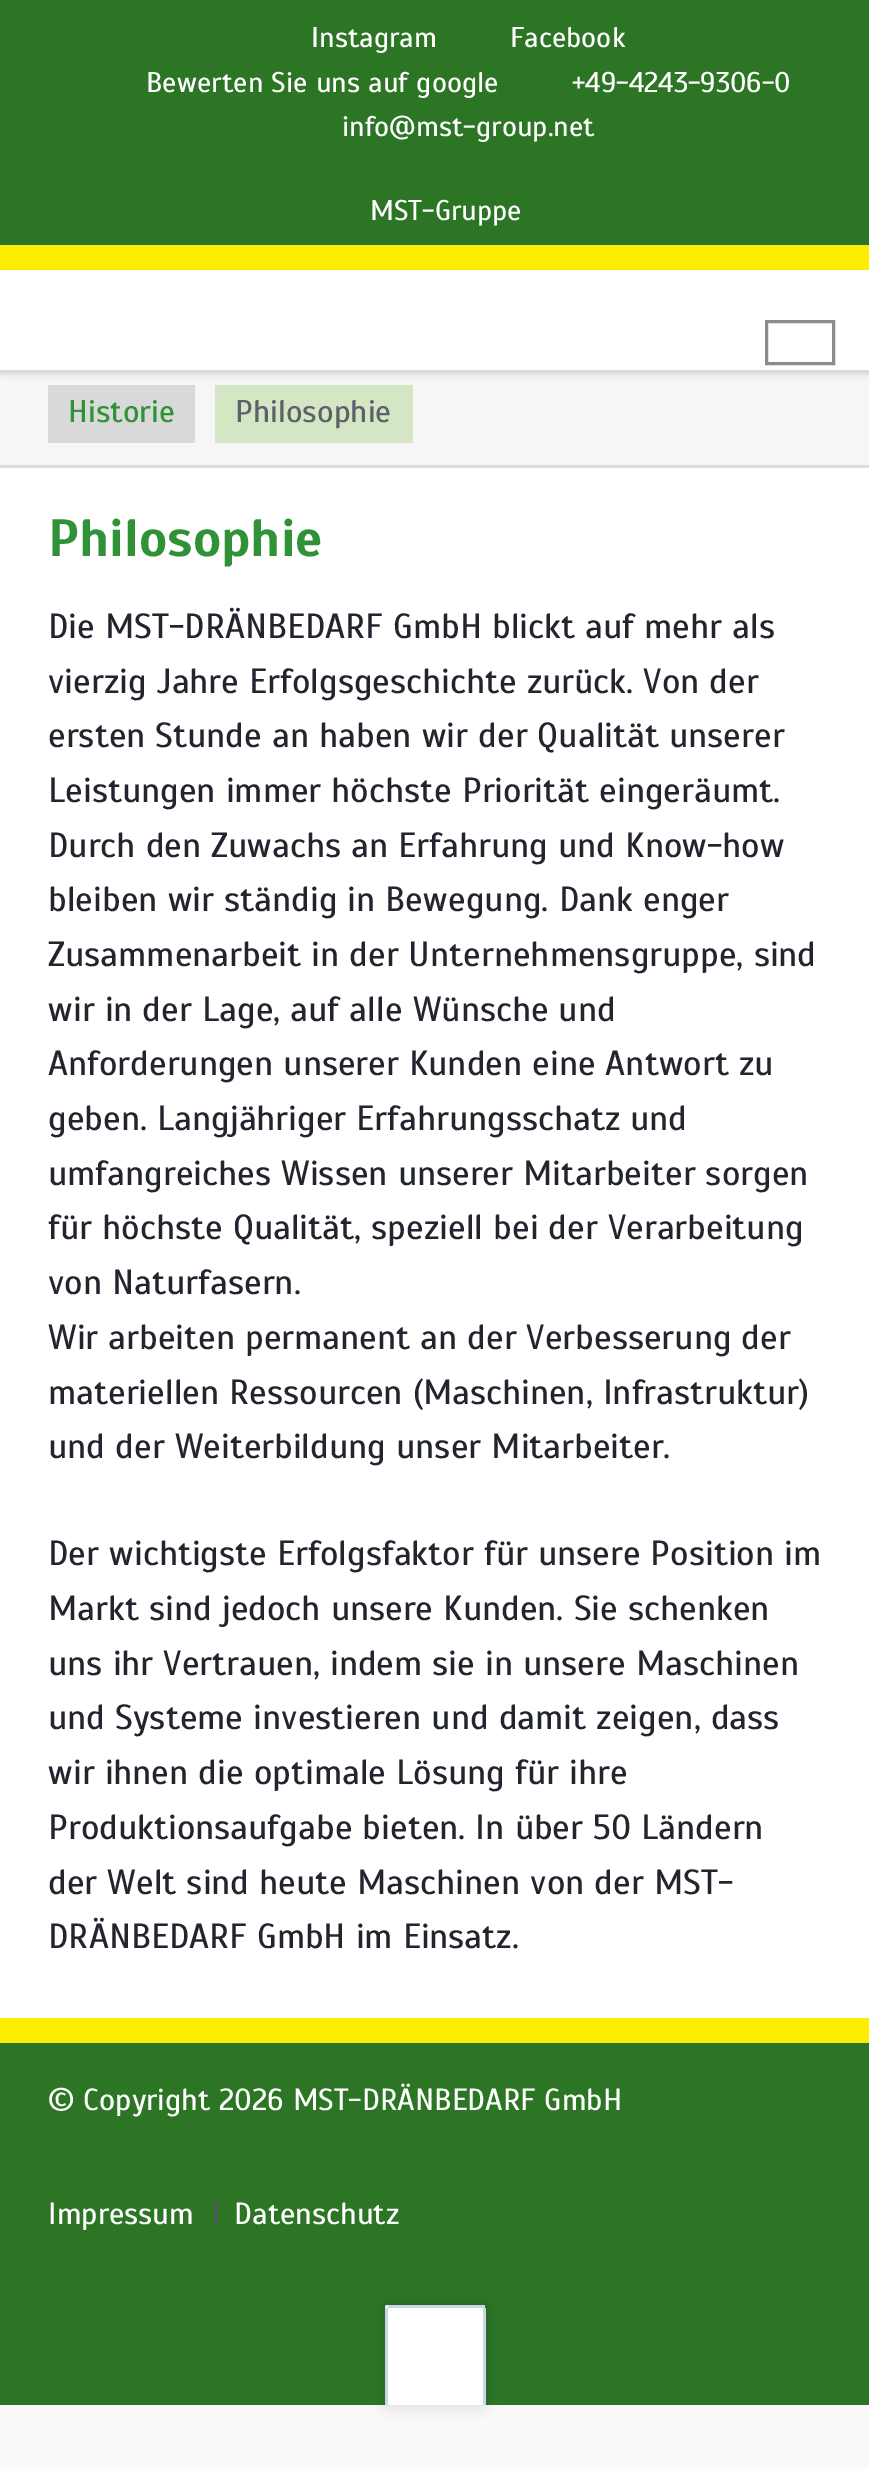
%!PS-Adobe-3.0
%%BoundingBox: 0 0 869 2469
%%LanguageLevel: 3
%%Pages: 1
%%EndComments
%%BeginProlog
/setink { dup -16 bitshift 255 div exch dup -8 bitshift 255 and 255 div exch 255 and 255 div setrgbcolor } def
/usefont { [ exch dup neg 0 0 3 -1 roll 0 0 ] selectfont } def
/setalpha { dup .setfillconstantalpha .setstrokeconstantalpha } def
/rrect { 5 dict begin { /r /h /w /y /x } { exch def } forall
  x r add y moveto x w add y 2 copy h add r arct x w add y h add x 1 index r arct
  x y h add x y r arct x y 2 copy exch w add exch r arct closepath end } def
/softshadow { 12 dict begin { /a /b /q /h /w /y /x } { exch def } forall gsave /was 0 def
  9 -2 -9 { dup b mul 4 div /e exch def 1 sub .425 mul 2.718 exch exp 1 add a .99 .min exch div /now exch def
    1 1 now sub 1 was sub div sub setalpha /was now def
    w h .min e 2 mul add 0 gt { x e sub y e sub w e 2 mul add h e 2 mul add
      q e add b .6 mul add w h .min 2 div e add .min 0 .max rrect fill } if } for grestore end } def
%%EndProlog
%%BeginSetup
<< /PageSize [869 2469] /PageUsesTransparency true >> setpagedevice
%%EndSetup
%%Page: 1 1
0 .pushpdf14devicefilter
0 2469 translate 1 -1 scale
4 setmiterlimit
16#FAFAFA setink
0 0 869 2469 rectfill
[
    [0 468 869 1550 16#FFFFFF]
    [0 0 869 245 16#2C7525]
    [0 245 869 25 16#FFED00]
] { aload pop setink rectfill } forall
/Scada-Regular 28.5 usefont
16#FFFFFF setink
[
    [(Instagram) 311 47]
    [(Facebook) 510 47]
    [(Bewerten Sie uns auf google) 146 92]
    [(+49-4243-9306-0) 572 92]
    [(info@mst-group.net) 342 136]
    [(MST-Gruppe) 370 220]
] { aload pop moveto show } forall
16#F6F6F6 setink
0 373 869 92 rectfill
16#000000 setink
0 273 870 102 0 2.5 0.1 softshadow
16#FFFFFF setink
0 270 869 100 rectfill
16#D9DCE1 setink
0 370 869 3 rectfill
16#8C8C8C setink
3 setlinewidth
766.5 321.5 67 42 rectstroke
16#D9DCE1 setink
0 465 869 3 rectfill
16#D9D9D9 setink
48 385 147 58 rectfill
/Scada-Regular 31.5 usefont
16#309237 setink
68 422 moveto (Historie) show
16#D5E6C5 setink
215 385 198 58 rectfill
16#5C6269 setink
235 422 moveto (Philosophie) show
/Scada-Bold 52.5 usefont
16#309237 setink
48 556 moveto (Philosophie) show
/Scada-Regular 35 usefont
16#22252E setink
[
    [(Die MST-DRÄNBEDARF GmbH blickt auf mehr als) 48 638]
    [(vierzig Jahre Erfolgsgeschichte zurück. Von der) 48 693]
    [(ersten Stunde an haben wir der Qualität unserer) 48 747]
    [(Leistungen immer höchste Priorität eingeräumt.) 48 802]
    [(Durch den Zuwachs an Erfahrung und Know-how) 48 857]
    [(bleiben wir ständig in Bewegung. Dank enger) 48 911]
    [(Zusammenarbeit in der Unternehmensgruppe, sind) 48 966]
    [(wir in der Lage, auf alle Wünsche und) 48 1021]
    [(Anforderungen unserer Kunden eine Antwort zu) 48 1075]
    [(geben. Langjähriger Erfahrungsschatz und) 48 1130]
    [(umfangreiches Wissen unserer Mitarbeiter sorgen) 48 1185]
    [(für höchste Qualität, speziell bei der Verarbeitung) 48 1239]
    [(von Naturfasern.) 48 1294]
    [(Wir arbeiten permanent an der Verbesserung der) 48 1349]
    [(materiellen Ressourcen \(Maschinen, Infrastruktur\)) 48 1404]
    [(und der Weiterbildung unser Mitarbeiter.) 48 1458]
    [(Der wichtigste Erfolgsfaktor für unsere Position im) 48 1565]
    [(Markt sind jedoch unsere Kunden. Sie schenken) 48 1620]
    [(uns ihr Vertrauen, indem sie in unsere Maschinen) 48 1675]
    [(und Systeme investieren und damit zeigen, dass) 48 1729]
    [(wir ihnen die optimale Lösung für ihre) 48 1784]
    [(Produktionsaufgabe bieten. In über 50 Ländern) 48 1839]
    [(der Welt sind heute Maschinen von der MST-) 48 1894]
    [(DRÄNBEDARF GmbH im Einsatz.) 48 1948]
] { aload pop moveto show } forall
16#2C7525 setink
0 2043 869 362 rectfill
16#FFED00 setink
0 2018 869 25 rectfill
/Scada-Regular 30.6 usefont
16#FFFFFF setink
48 2110 moveto (© Copyright 2026 MST-DRÄNBEDARF GmbH) show
48 2224 moveto (Impressum) show
16#525663 setink
215 2200 3 25 rectfill
16#FFFFFF setink
234 2224 moveto (Datenschutz) show
16#000000 setink
385 2305 100 100 2.5 9 0.15 softshadow
16#FFFFFF setink
387.5 2305 moveto 482.5 2305 lineto 484 2305 485 2306 485 2307.5 curveto 485 2405 lineto 385 2405 lineto 385 2307.5 lineto 385 2306 386 2305 387.5 2305 curveto closepath fill
[
    [388 2305 97 3 16#C8D6E6]
    [483 2308 3 97 16#C8D6E6]
    [385 2308 3 97 16#C8D6E6]
] { aload pop setink rectfill } forall
.poppdf14devicefilter showpage
%%EOF
